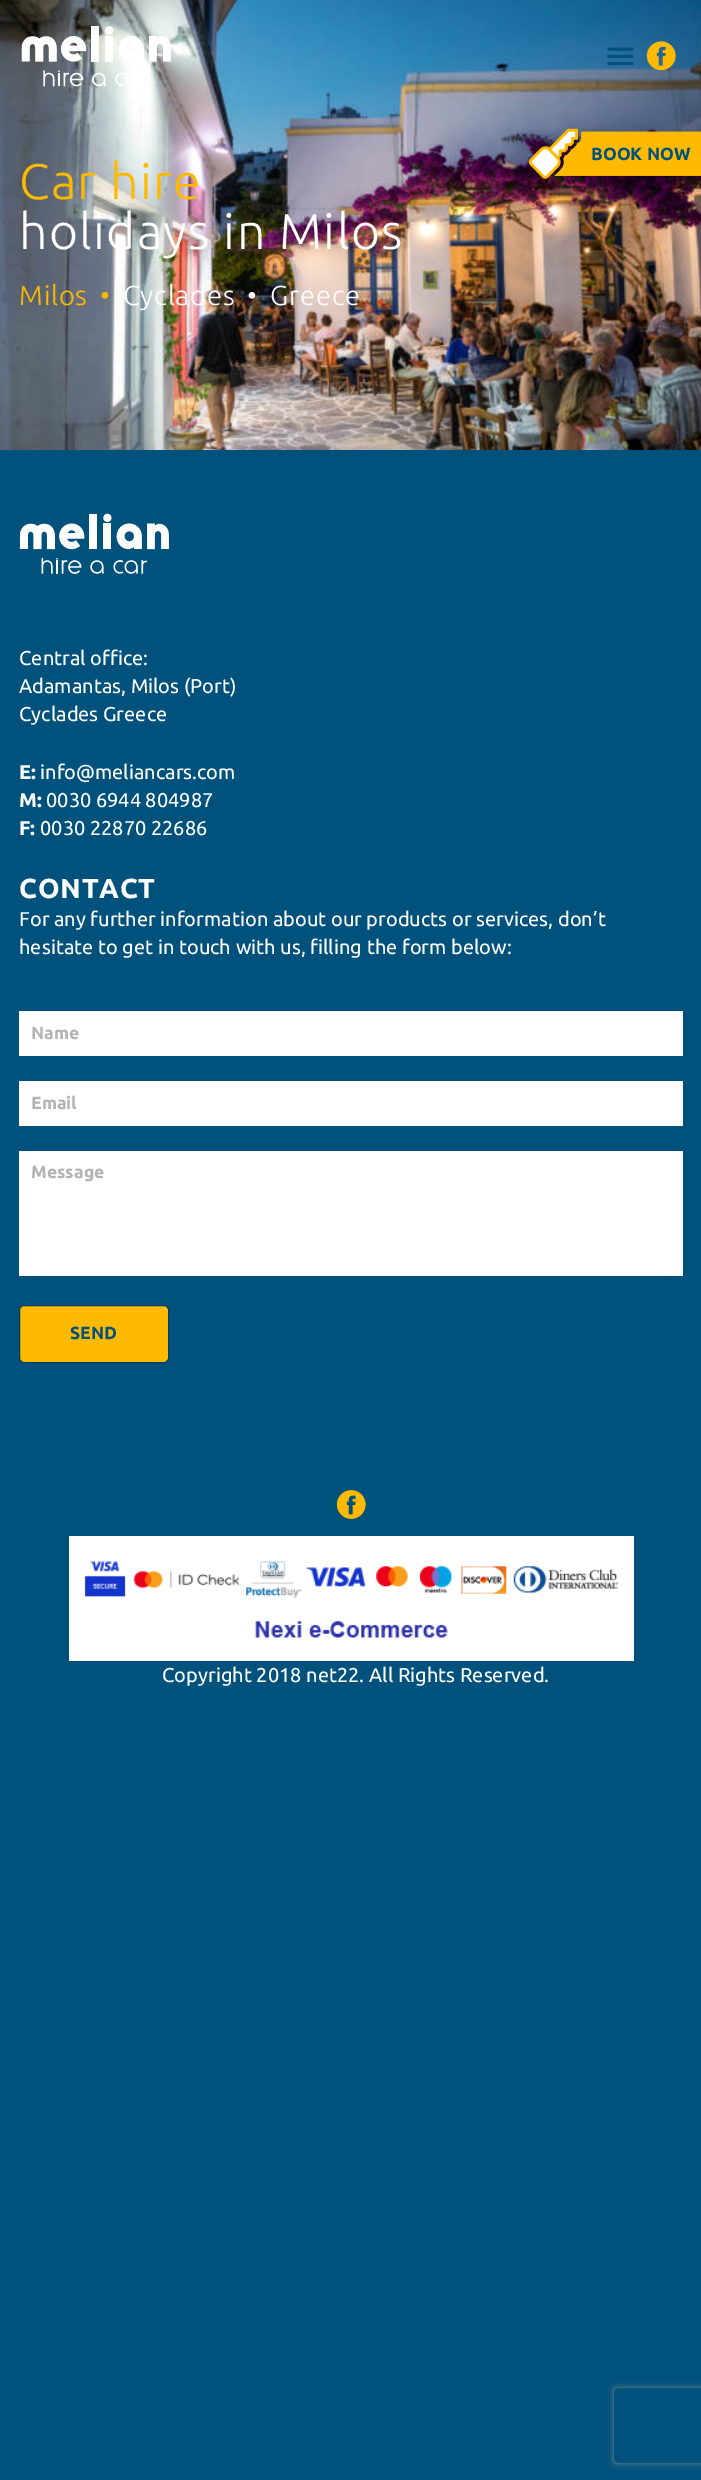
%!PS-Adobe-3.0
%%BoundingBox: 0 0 701 2480
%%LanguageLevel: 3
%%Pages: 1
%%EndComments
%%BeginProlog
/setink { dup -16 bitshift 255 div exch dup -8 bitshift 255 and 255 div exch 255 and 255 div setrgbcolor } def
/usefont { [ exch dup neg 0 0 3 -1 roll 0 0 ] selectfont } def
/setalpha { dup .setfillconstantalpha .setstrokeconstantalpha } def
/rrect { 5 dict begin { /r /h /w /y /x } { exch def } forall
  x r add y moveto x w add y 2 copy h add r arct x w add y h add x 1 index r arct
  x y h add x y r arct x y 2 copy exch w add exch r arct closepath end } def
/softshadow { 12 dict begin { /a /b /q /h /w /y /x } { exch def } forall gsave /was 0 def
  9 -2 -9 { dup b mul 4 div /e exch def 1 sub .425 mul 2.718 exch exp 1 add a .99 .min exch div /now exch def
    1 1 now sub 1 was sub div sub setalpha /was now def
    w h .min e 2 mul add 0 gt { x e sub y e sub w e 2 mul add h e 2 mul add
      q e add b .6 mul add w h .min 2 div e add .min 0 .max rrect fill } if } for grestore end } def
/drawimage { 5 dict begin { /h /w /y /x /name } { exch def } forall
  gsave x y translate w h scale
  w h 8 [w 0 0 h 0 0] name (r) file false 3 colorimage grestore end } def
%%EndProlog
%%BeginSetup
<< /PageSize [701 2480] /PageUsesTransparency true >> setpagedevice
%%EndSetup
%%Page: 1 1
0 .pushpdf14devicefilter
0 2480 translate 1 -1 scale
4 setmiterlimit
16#00527D setink
0 0 701 2480 rectfill
(img5.raw) 0 0 701 450 drawimage
(img1.raw) 21 26 150 61 drawimage
(img2.raw) 607 47 27 19 drawimage
(img3.raw) 646 41 30 30 drawimage
(img4.raw) 528 128 173 51 drawimage
/Ubuntu-Bold 17.5 usefont
591 160 moveto (BOOK NOW) show
/Ubuntu-Light 50 usefont
16#FFBA00 setink
19 199 moveto 1.25 0 (Car hire) ashow
16#FFFFFF setink
19 249 moveto 1.25 0 (holidays in Milos) ashow
/Ubuntu-Light 27.5 usefont
16#FFBA00 setink
19 305 moveto 0.75 0 (Milos) ashow
100 305 moveto 0.75 0 (•) ashow
16#FFFFFF setink
123 305 moveto 0.75 0 (Cyclades) ashow
247 305 moveto 0.75 0 (•) ashow
270 305 moveto 0.75 0 (Greece) ashow
(img6.raw) 19 513 150 61 drawimage
/Ubuntu-Regular 20 usefont
[
    [(Central office:) 19 665]
    [(Adamantas, Milos \(Port\)) 19 693]
    [(Cyclades Greece) 19 721]
] { aload pop moveto show } forall
/Ubuntu-Bold 20 usefont
19 779 moveto (E:) show
/Ubuntu-Regular 20 usefont
40 779 moveto (info@meliancars.com) show
/Ubuntu-Bold 20 usefont
19 807 moveto (M:) show
/Ubuntu-Regular 20 usefont
46 807 moveto (0030 6944 804987) show
/Ubuntu-Bold 20 usefont
19 835 moveto (F:) show
/Ubuntu-Regular 20 usefont
40 835 moveto (0030 22870 22686) show
/Ubuntu-Bold 27.5 usefont
19 898 moveto 0.75 0 (CONTACT) ashow
/Ubuntu-Regular 20 usefont
19 926 moveto (For any further information about our products or services, don’t) show
19 954 moveto (hesitate to get in touch with us, filling the form below:) show
19 1011 664 45 rectfill
/Ubuntu-Bold 17.5 usefont
16#B3B3B3 setink
31 1039 moveto (Name) show
16#FFFFFF setink
19 1081 664 45 rectfill
16#B3B3B3 setink
31 1109 moveto (Email) show
16#FFFFFF setink
19 1151 664 125 rectfill
16#B3B3B3 setink
31 1178 moveto (Message) show
16#FFBA00 setink
19.5 1305.5 149 57 4.5 rrect gsave fill grestore
16#003F63 setink
stroke
16#00527D setink
70 1339 moveto (SEND) show
(img7.raw) 336 1490 30 29 drawimage
16#FFFFFF setink
69 1536 565 125 rectfill
(img8.raw) 84 1561 534 77 drawimage
/Ubuntu-Regular 20 usefont
162 1682 moveto (Copyright 2018 net22. All Rights Reserved.) show
gsave
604 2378 moveto 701 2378 lineto 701 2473 lineto 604 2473 lineto closepath 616.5 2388 moveto 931.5 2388 lineto 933 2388 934 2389 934 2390.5 curveto 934 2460.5 lineto 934 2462 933 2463 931.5 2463 curveto 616.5 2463 lineto 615 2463 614 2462 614 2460.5 curveto 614 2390.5 lineto 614 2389 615 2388 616.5 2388 curveto closepath eoclip newpath
16#808080 setink
614 2388 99 75 2.5 3 1 softshadow
grestore
.poppdf14devicefilter showpage
%%EOF
